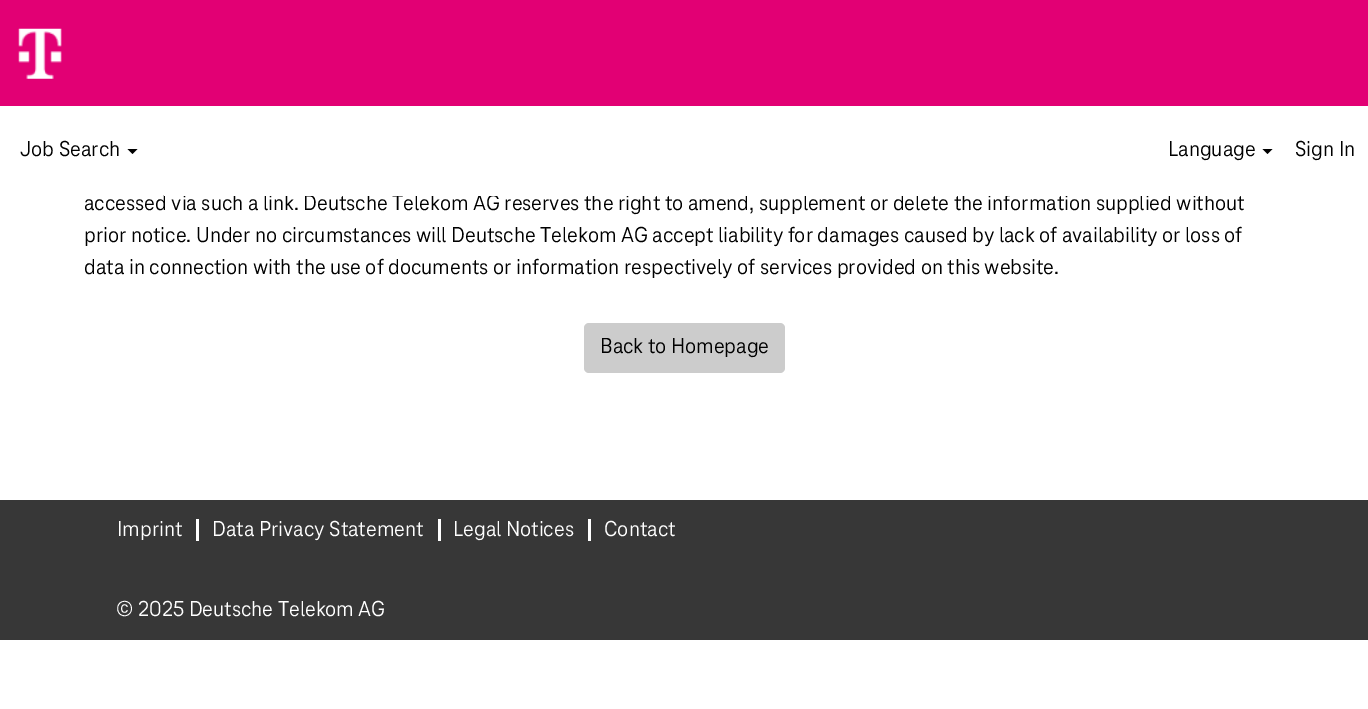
%!PS-Adobe-3.0
%%BoundingBox: 0 0 1368 709
%%LanguageLevel: 3
%%Pages: 1
%%EndComments
%%BeginProlog
/setink { dup -16 bitshift 255 div exch dup -8 bitshift 255 and 255 div exch 255 and 255 div setrgbcolor } def
/usefont { [ exch dup neg 0 0 3 -1 roll 0 0 ] selectfont } def
/rrect { 5 dict begin { /r /h /w /y /x } { exch def } forall
  x r add y moveto x w add y 2 copy h add r arct x w add y h add x 1 index r arct
  x y h add x y r arct x y 2 copy exch w add exch r arct closepath end } def
/drawimage { 5 dict begin { /h /w /y /x /name } { exch def } forall
  gsave x y translate w h scale
  w h 8 [w 0 0 h 0 0] name (r) file false 3 colorimage grestore end } def
%%EndProlog
%%BeginSetup
<< /PageSize [1368 709] >> setpagedevice
%%EndSetup
%%Page: 1 1
0 709 translate 1 -1 scale
4 setmiterlimit
16#FFFFFF setink
0 0 1368 709 rectfill
/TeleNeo-Regular 22.5 usefont
16#000000 setink
84 210 moveto (accessed via such a link. Deutsche Telekom AG reserves the right to amend, supplement or delete the information supplied without) show
16#FFFFFF setink
164 194 1078 2 rectfill
16#E20074 setink
0 0 1368 106 rectfill
(img1.raw) 18 28 44 51 drawimage
16#000000 setink
20 156 moveto (Job Search) show
127.5 149 moveto 137.5 149 lineto 132.5 154 lineto closepath fill
1168 156 moveto (Language) show
1262.5 149 moveto 1272.5 149 lineto 1267.5 154 lineto closepath fill
[
    [(Sign In) 1295 156]
    [(prior notice. Under no circumstances will Deutsche Telekom AG accept liability for damages caused by lack of availability or loss of) 84 242]
    [(data in connection with the use of documents or information respectively of services provided on this website.) 84 274]
] { aload pop moveto show } forall
16#CCCCCC setink
584 323 201 50 5 rrect fill
16#000000 setink
600 353 moveto (Back to Homepage) show
16#373737 setink
0 500 1368 140 rectfill
16#FFFFFF setink
196 519 3 22 rectfill
117 536 moveto (Imprint) show
438 519 3 22 rectfill
212 536 moveto (Data Privacy Statement) show
588 519 3 22 rectfill
[
    [(Legal Notices) 453 536]
    [(Contact) 604 536]
    [(© 2025 Deutsche Telekom AG) 116 616]
] { aload pop moveto show } forall
showpage
%%EOF
